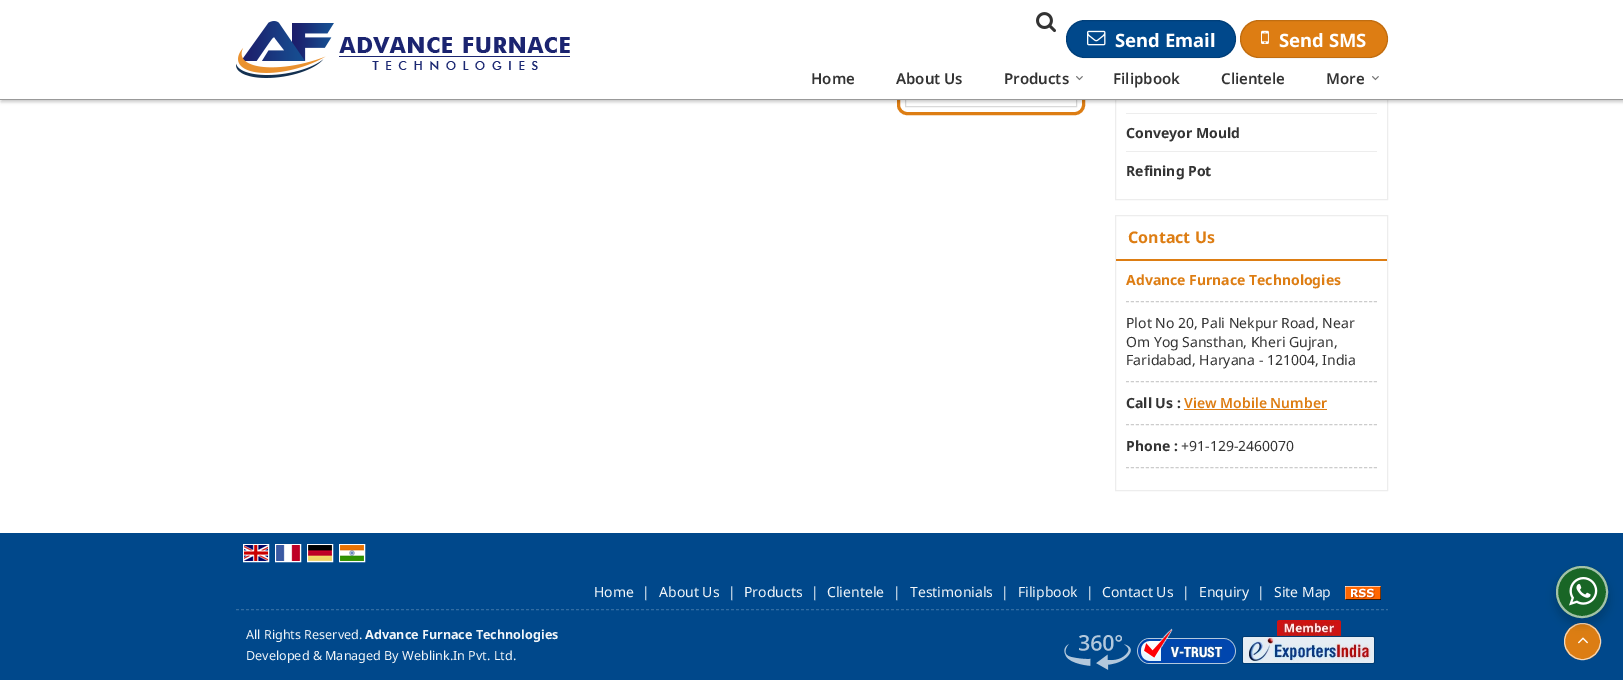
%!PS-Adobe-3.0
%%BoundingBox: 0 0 1623 680
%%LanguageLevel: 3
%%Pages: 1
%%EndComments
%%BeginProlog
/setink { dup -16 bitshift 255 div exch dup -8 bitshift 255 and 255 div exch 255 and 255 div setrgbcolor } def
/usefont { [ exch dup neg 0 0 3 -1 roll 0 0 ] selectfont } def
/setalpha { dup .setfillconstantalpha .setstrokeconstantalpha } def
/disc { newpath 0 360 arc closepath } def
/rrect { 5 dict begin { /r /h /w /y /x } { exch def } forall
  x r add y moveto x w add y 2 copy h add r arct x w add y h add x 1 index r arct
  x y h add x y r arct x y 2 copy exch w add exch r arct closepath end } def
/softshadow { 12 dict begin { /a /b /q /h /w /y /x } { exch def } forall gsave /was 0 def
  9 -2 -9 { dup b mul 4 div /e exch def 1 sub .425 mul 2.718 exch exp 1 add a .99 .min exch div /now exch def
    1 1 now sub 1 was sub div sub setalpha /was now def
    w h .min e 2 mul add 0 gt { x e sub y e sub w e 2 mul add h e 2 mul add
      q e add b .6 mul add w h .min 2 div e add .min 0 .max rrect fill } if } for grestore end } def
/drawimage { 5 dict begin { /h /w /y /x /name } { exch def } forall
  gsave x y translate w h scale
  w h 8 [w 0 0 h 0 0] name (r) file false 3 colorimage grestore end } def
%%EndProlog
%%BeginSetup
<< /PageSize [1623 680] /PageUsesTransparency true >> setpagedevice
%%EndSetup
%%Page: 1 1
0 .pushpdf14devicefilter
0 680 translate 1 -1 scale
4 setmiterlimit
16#FFFFFF setink
0 0 1623 680 rectfill
16#DD7D13 setink
3 setlinewidth
898.5 -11.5 185 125 8.5 rrect stroke
16#D9D9D9 setink
1 setlinewidth
905.5 -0.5 171 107 rectstroke
16#EDEDED setink
1115.5 -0.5 272 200 rectstroke
16#000000 setink
1 2 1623 100 0 1.5 0.2 softshadow
16#FFFFFF setink
0 0 1623 99 rectfill
16#999999 setink
0 99 1623 1 rectfill
(img1.raw) 236 21 334 57 drawimage
(img2.raw) 1036 12 20 21 drawimage
16#00488B setink
1066 20 170 38 19 rrect fill
0.13 setalpha
16#000000 setink
1066.5 20.5 169 37 18.5 rrect stroke
1 setalpha
(img3.raw) 1087 30 19 16 drawimage
/NotoSans-Bold 18.5 usefont
16#FFFFFF setink
1115 47 moveto (Send Email) show
16#DD7D13 setink
1240 20 148 38 19 rrect fill
0.13 setalpha
16#000000 setink
1240.5 20.5 147 37 18.5 rrect stroke
1 setalpha
(img4.raw) 1261 30 8 14 drawimage
16#FFFFFF setink
1279 47 moveto (Send SMS) show
/NotoSans-SemiBold 15 usefont
16#333333 setink
[
    [(Home) 811 84]
    [(About Us) 896 84]
    [(Products) 1004 84]
] { aload pop moveto show } forall
(img5.raw) 1076 76 7 5 drawimage
[
    [(Filipbook) 1113 84]
    [(Clientele) 1221 84]
    [(More) 1326 84]
] { aload pop moveto show } forall
(img5.raw) 1372 76 7 5 drawimage
16#EDEDED setink
1126 113 251 1 rectfill
1126 151 251 1 rectfill
/NotoSans-Bold 14 usefont
16#333333 setink
1126 138 moveto (Conveyor Mould) show
1126 176 moveto (Refining Pot) show
16#EDEDED setink
1115.5 215.5 272 275 rectstroke
16#DD7D13 setink
1116 259 271 2 rectfill
/NotoSans-Bold 16 usefont
1128 243 moveto (Contact Us) show
/NotoSans-Bold 14 usefont
1126 285 moveto (Advance Furnace Technologies) show
16#CCCCCC setink
[3 1.96] 0 setdash
1126 301.5 moveto 1377 301.5 lineto stroke
/NotoSans-Regular 14 usefont
16#333333 setink
[
    [(Plot No 20, Pali Nekpur Road, Near) 1126 328]
    [(Om Yog Sansthan, Kheri Gujran,) 1126 347]
    [(Faridabad, Haryana - 121004, India) 1126 365]
] { aload pop moveto show } forall
16#CCCCCC setink
1126 381.5 moveto 1377 381.5 lineto stroke
/NotoSans-Bold 14 usefont
16#333333 setink
1126 408 moveto (Call Us :) show
/NotoSans-SemiBold 14 usefont
16#DD7D13 setink
1184 408 moveto (View Mobile Number) show
1184 409 143 1 rectfill
16#CCCCCC setink
1126 424.5 moveto 1377 424.5 lineto stroke
/NotoSans-Bold 14 usefont
16#333333 setink
1126 451 moveto (Phone :) show
/NotoSans-Regular 14 usefont
1181 451 moveto (+91-129-2460070) show
16#CCCCCC setink
1126 467.5 moveto 1377 467.5 lineto stroke
16#00488B setink
0 533 1623 147 rectfill
16#FFFFFF setink
[] 0 setdash
243.5 544.5 25 17 rectstroke
275.5 544.5 25 17 rectstroke
307.5 544.5 25 17 rectstroke
339.5 544.5 25 17 rectstroke
(img6.raw) 244 545 24 16 drawimage
(img7.raw) 276 545 24 16 drawimage
(img8.raw) 308 545 24 16 drawimage
(img9.raw) 340 545 24 16 drawimage
16#F2F6F9 setink
[
    [(Home) 594 597]
    [(|) 642 597]
    [(About Us) 659 597]
    [(|) 728 597]
    [(Products) 744 597]
    [(|) 811 597]
    [(Clientele) 827 597]
    [(|) 893 597]
    [(Testimonials) 910 597]
    [(|) 1001 597]
    [(Filipbook) 1018 597]
    [(|) 1086 597]
    [(Contact Us) 1102 597]
    [(|) 1182 597]
    [(Enquiry) 1199 597]
    [(|) 1257 597]
    [(Site Map) 1274 597]
] { aload pop moveto show } forall
(img10.raw) 1345 586 36 14 drawimage
16#336DA2 setink
[3 2] 0 setdash
236 609.5 moveto 1388 609.5 lineto stroke
/NotoSans-Regular 12.6 usefont
16#F2F6F9 setink
246 639 moveto (All Rights Reserved.) show
/NotoSans-Bold 12.6 usefont
365 639 moveto (Advance Furnace Technologies) show
/NotoSans-Regular 12.6 usefont
246 660 moveto (Developed & Managed By Weblink.In Pvt. Ltd.) show
(img11.raw) 1064 635 67 35 drawimage
(img12.raw) 1137 628 99 36 drawimage
(img13.raw) 1242 620 133 44 drawimage
16#DC7D13 setink
1582.5 641.5 18.5 disc fill
0.7 setalpha
16#FEFEFF setink
[] 0 setdash
1582.5 641.5 18 disc stroke
1 setalpha
(img15.raw) 1578 637 10 7 drawimage
16#000000 setink
1554 570 56 56 28 4 0.14 softshadow
16#196626 setink
1582 592 26 disc fill
0.6 setalpha
16#FFFFFF setink
2 setlinewidth
1582 592 25 disc stroke
1 setalpha
(img14.raw) 1569 577 29 29 drawimage
.poppdf14devicefilter showpage
%%EOF
